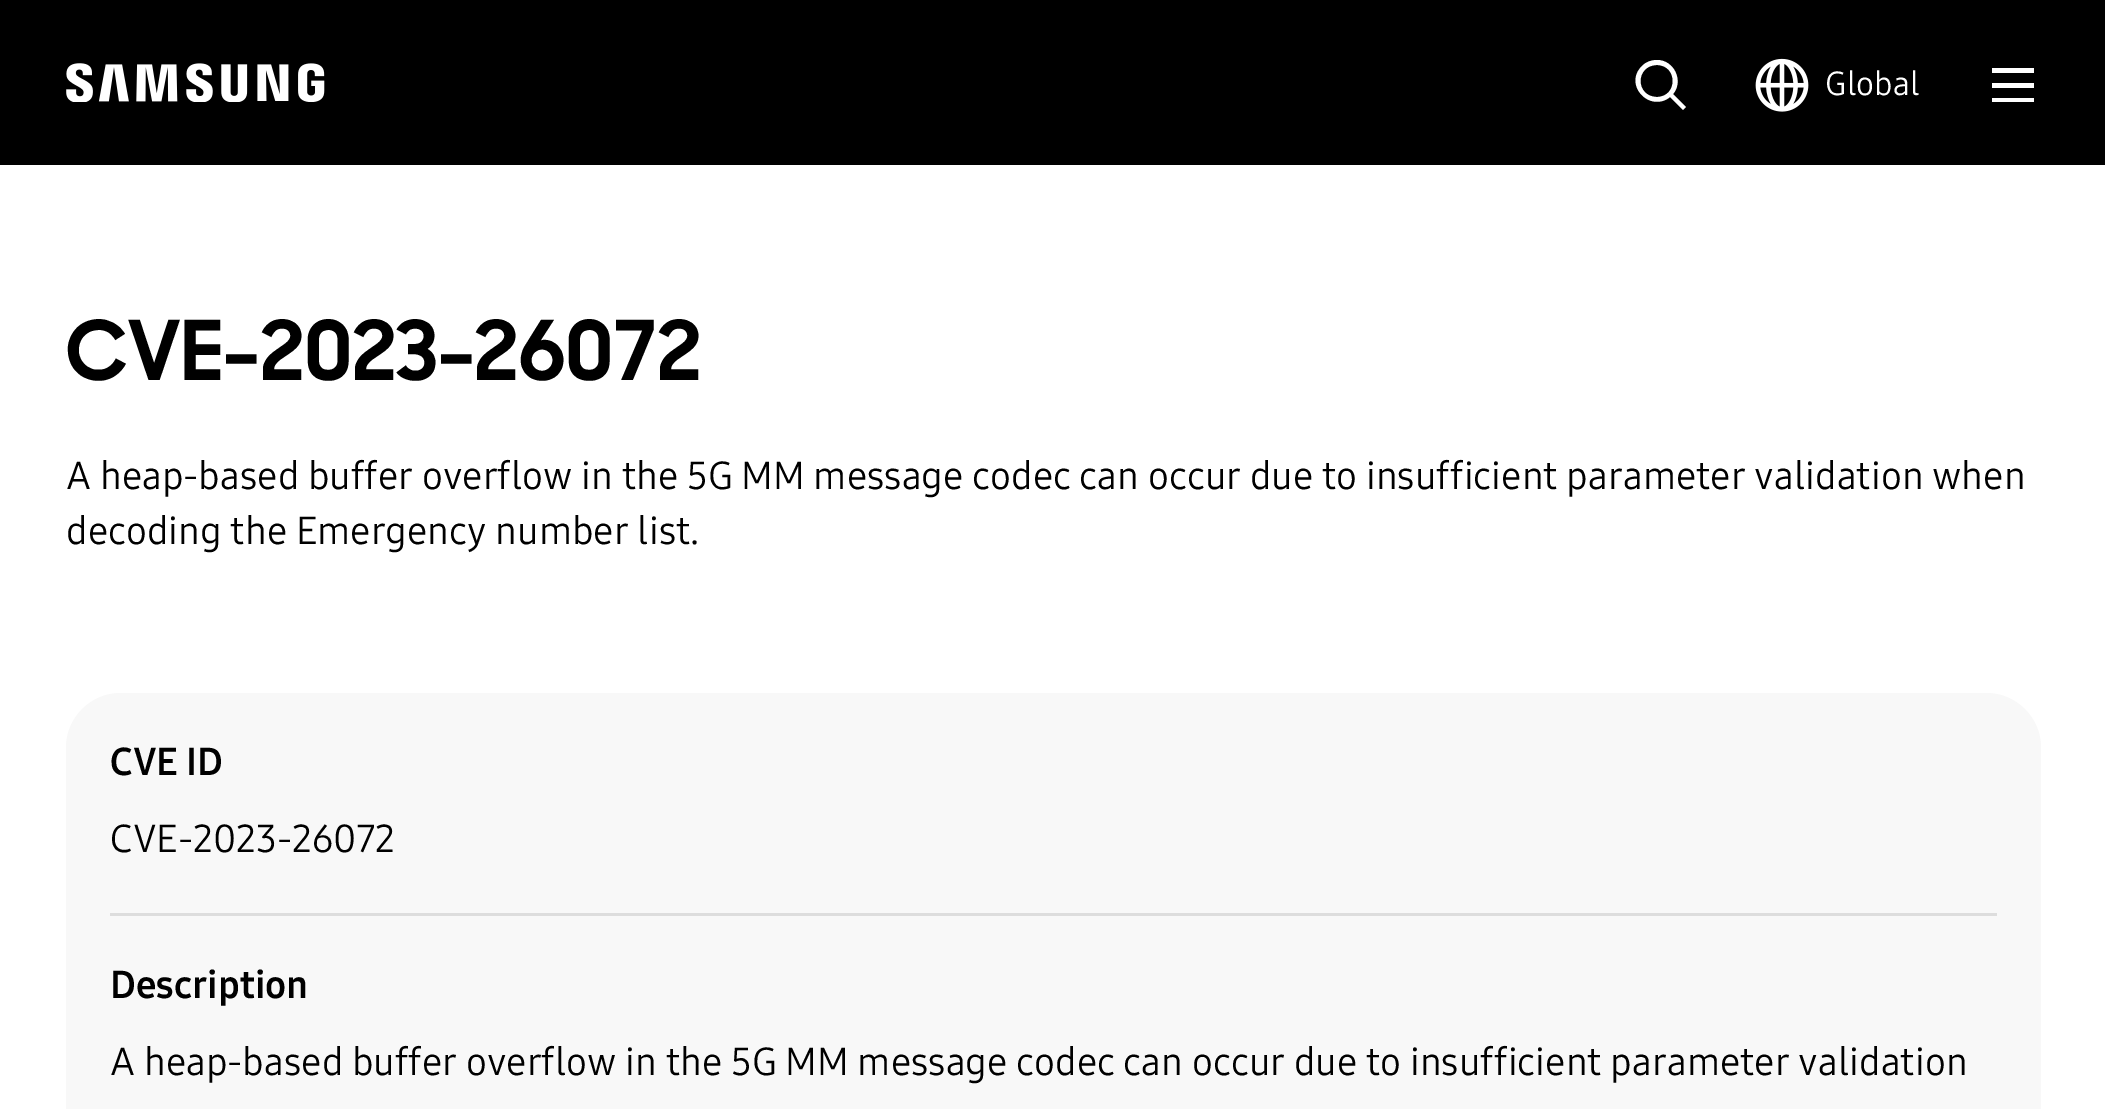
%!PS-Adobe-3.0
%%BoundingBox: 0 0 2105 1109
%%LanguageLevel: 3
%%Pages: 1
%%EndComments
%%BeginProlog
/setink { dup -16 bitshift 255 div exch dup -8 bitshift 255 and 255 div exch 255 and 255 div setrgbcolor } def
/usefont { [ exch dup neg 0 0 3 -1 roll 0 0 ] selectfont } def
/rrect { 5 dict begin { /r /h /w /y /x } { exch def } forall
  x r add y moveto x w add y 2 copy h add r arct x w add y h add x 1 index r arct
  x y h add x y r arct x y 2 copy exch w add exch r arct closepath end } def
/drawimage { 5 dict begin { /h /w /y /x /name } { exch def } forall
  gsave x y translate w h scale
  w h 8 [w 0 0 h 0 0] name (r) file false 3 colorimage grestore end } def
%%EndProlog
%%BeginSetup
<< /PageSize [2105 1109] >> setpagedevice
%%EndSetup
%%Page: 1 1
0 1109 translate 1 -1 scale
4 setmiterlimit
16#FFFFFF setink
0 0 2105 1109 rectfill
16#000000 setink
0 0 2105 165 rectfill
(img1.raw) 66 63 259 39 drawimage
16#FFFFFF setink
1657 60 moveto 1674 60 1684 81 1673 94 curveto 1686 107 lineto 1683 110 lineto 1670 97 lineto 1650 113 1623 85 1642 66 curveto 1646 62 1651 60 1657 60 curveto closepath 1657 65 moveto 1635 65 1635 97 1657 97 curveto 1678 97 1678 65 1657 65 curveto closepath fill
(img2.raw) 1755 58 54 54 drawimage
/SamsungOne-Regular 33 usefont
1825 95 moveto (Global) show
2034 98 moveto 2034 102 lineto 1992 102 lineto 1992 98 lineto closepath 2034 83 moveto 2034 88 lineto 1992 88 lineto 1992 83 lineto closepath 2034 68 moveto 2034 73 lineto 1992 73 lineto 1992 68 lineto closepath fill
/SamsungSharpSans-Bold 82.5 usefont
16#000000 setink
66 380 moveto (CVE-2023-26072) show
/SamsungOne-Regular 38.5 usefont
66 489 moveto (A heap-based buffer overflow in the 5G MM message codec can occur due to insufficient parameter validation when) show
66 544 moveto (decoding the Emergency number list.) show
16#F8F8F8 setink
66 693 1975 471 55 rrect fill
16#DDDDDD setink
110 913 1887 3 rectfill
/SamsungOne-Bold 38.5 usefont
16#000000 setink
110 775 moveto (CVE ID) show
/SamsungOne-Regular 38.5 usefont
110 852 moveto (CVE-2023-26072) show
/SamsungOne-Bold 38.5 usefont
110 998 moveto (Description) show
/SamsungOne-Regular 38.5 usefont
110 1075 moveto (A heap-based buffer overflow in the 5G MM message codec can occur due to insufficient parameter validation) show
showpage
%%EOF
